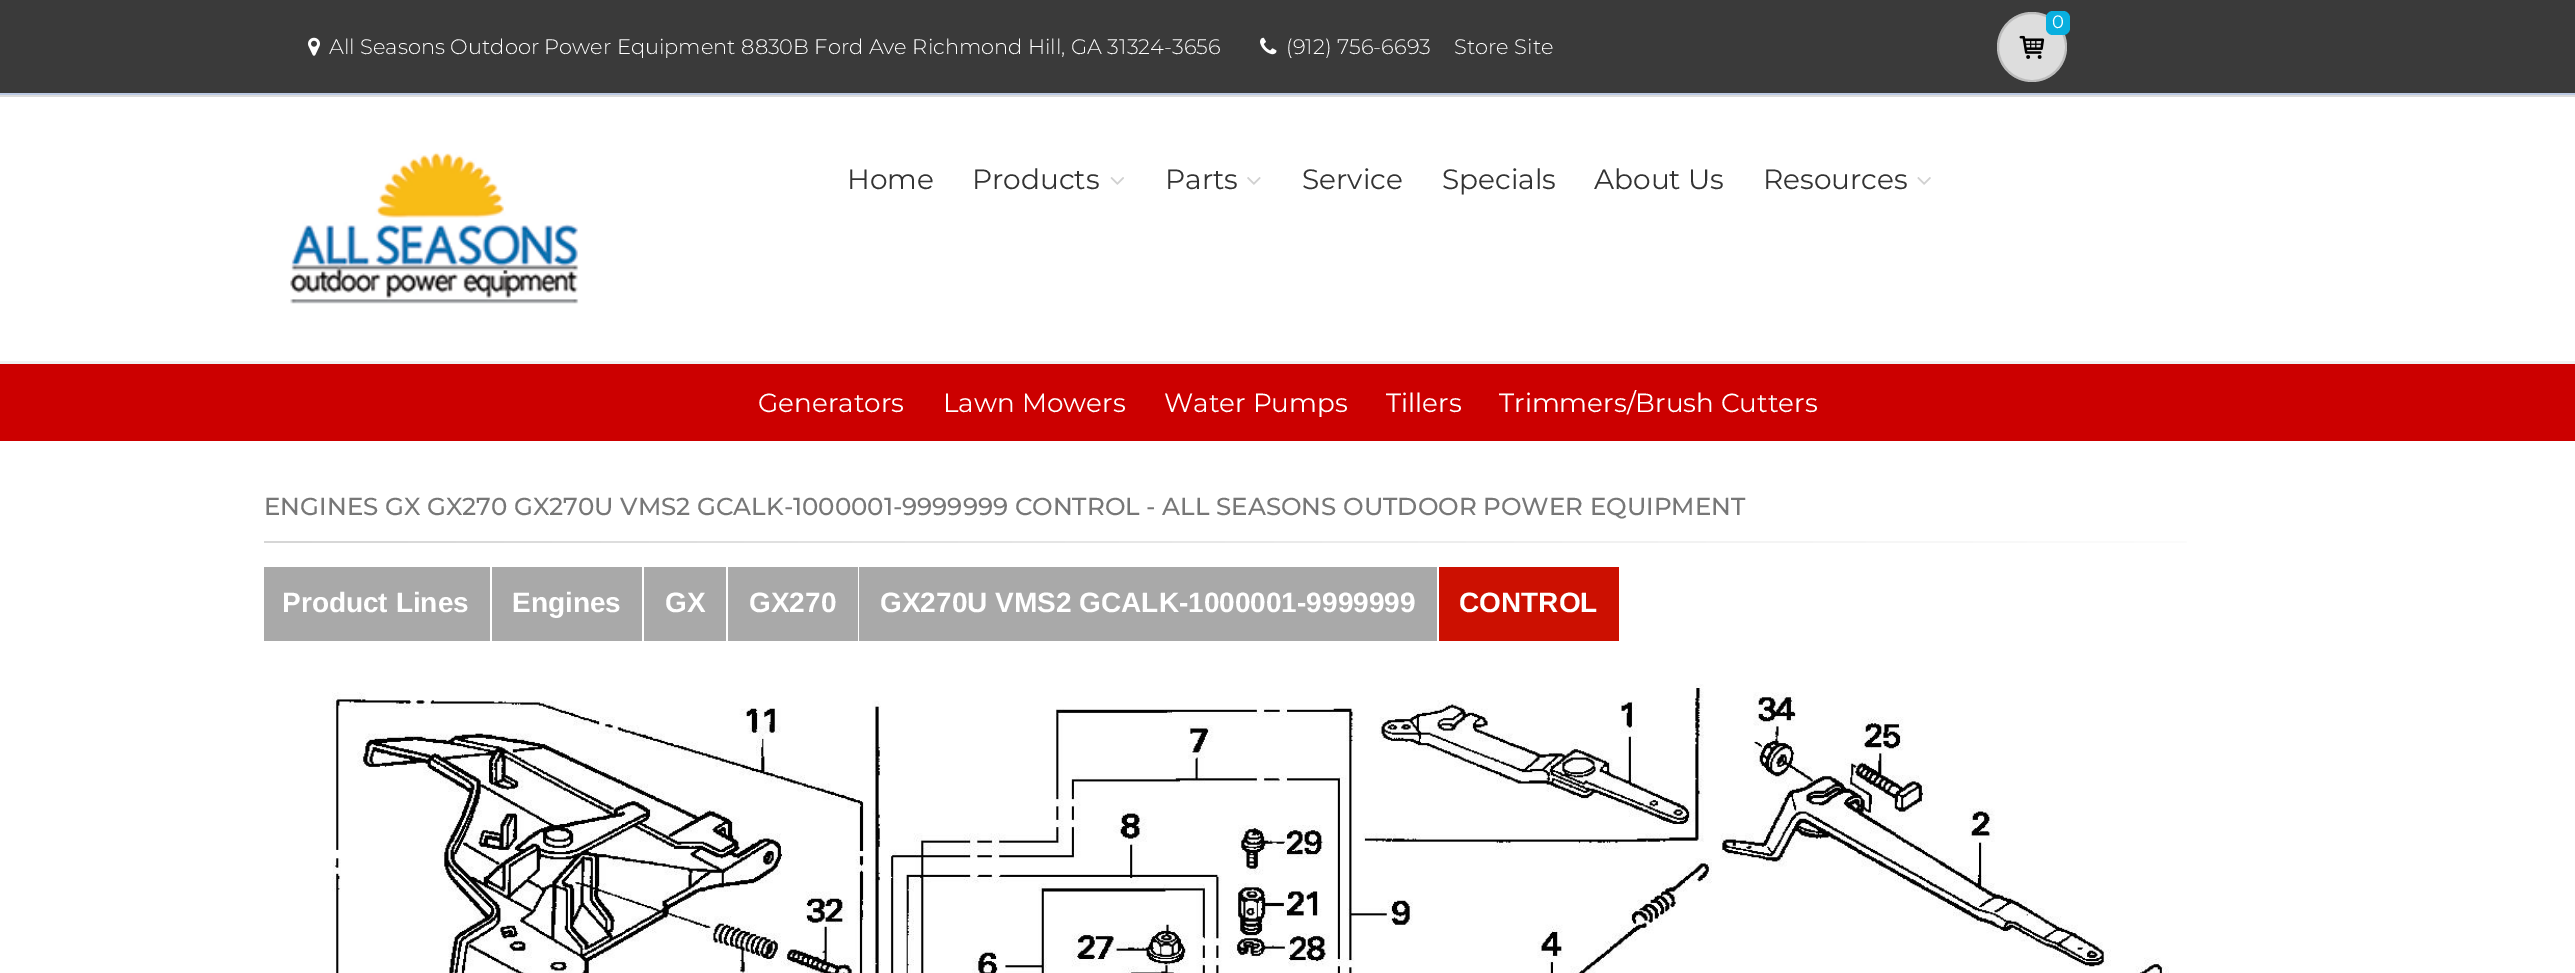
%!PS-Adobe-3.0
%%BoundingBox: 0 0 2575 973
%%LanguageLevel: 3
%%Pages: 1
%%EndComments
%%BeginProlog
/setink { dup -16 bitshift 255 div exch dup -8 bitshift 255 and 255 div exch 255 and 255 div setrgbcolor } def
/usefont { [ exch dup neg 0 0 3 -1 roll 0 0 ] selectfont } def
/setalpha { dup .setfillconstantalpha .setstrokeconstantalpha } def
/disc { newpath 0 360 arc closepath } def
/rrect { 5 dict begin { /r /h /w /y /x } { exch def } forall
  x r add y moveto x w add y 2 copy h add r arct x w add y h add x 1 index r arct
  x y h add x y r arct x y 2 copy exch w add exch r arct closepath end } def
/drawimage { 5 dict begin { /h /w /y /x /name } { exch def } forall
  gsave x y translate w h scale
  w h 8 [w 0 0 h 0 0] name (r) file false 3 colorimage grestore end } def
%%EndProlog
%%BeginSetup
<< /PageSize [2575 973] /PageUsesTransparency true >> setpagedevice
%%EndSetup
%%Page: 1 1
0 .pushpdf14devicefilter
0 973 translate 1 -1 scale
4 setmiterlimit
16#FFFFFF setink
0 0 2575 973 rectfill
16#3A3A3A setink
0 0 2575 93 rectfill
16#BBC9E3 setink
0 93 2575 2 rectfill
16#DDDDDD setink
2032 47 35 disc fill
0.15 setalpha
16#000000 setink
2 setlinewidth
2032 47 34 disc stroke
1 setalpha
16#09AFDF setink
2046 11 24 24 7 rrect fill
/Montserrat-Regular 18 usefont
16#FFFFFF setink
2052 28 moveto (0) show
(img1.raw) 2019 35 26 24 drawimage
(img2.raw) 308 37 12 19 drawimage
/Montserrat-Light 21 usefont
329 54 moveto (All Seasons Outdoor Power Equipment 8830B Ford Ave Richmond Hill, GA 31324-3656) show
(img3.raw) 1260 37 17 18 drawimage
1286 54 moveto (\(912\) 756-6693) show
1454 54 moveto (Store Site) show
16#DDDDDD setink
0 95 2575 2 rectfill
16#F1F1F1 setink
0 361 2575 3 rectfill
(img4.raw) 290 152 289 152 drawimage
/Montserrat-Regular 28 usefont
16#333333 setink
847 189 moveto (Home) show
972 189 moveto (Products) show
(img5.raw) 1110 177 14 8 drawimage
1165 189 moveto (Parts) show
(img6.raw) 1247 177 14 8 drawimage
[
    [(Service) 1302 189]
    [(Specials) 1442 189]
    [(About Us) 1594 189]
    [(Resources) 1763 189]
] { aload pop moveto show } forall
(img7.raw) 1917 177 14 8 drawimage
16#CC0000 setink
0 364 2575 77 rectfill
/Montserrat-Regular 26.25 usefont
16#FFFFFF setink
[
    [(Generators) 758 412]
    [(Lawn Mowers) 943 412]
    [(Water Pumps) 1164 412]
    [(Tillers) 1386 412]
    [(Trimmers/Brush Cutters) 1499 412]
] { aload pop moveto show } forall
/Montserrat-Medium 24.5 usefont
16#777777 setink
264 515 moveto (ENGINES GX GX270 GX270U VMS2 GCALK-1000001-9999999 CONTROL - ALL SEASONS OUTDOOR POWER EQUIPMENT) show
gsave 264 541 moveto 2187 541 lineto 2187 543 lineto 264 543 lineto closepath clip newpath
<< /ShadingType 2 /ColorSpace /DeviceRGB /Coords [264 542 2312 542] /Extend [true true] /Function << /FunctionType 2 /Domain [0 1] /C0 [0.839 0.839 0.839] /C1 [1 1 1] /N 1 >> >> shfill grestore
16#A9A9A9 setink
264 567 226 74 rectfill
/LiberationSans-Bold 28 usefont
16#FFFFFF setink
282 612 moveto (Product Lines) show
16#A9A9A9 setink
492 567 150 74 rectfill
16#FFFFFF setink
512 612 moveto (Engines) show
16#A9A9A9 setink
644 567 82 74 rectfill
16#FFFFFF setink
665 612 moveto (GX) show
16#A9A9A9 setink
728 567 130 74 rectfill
16#FFFFFF setink
749 612 moveto (GX270) show
16#A9A9A9 setink
859 567 578 74 rectfill
16#FFFFFF setink
880 612 moveto (GX270U VMS2 GCALK-1000001-9999999) show
16#CC1001 setink
1439 567 180 74 rectfill
16#FFFFFF setink
1459 612 moveto (CONTROL) show
(img8.raw) 332 684 1837 289 drawimage
.poppdf14devicefilter showpage
%%EOF
